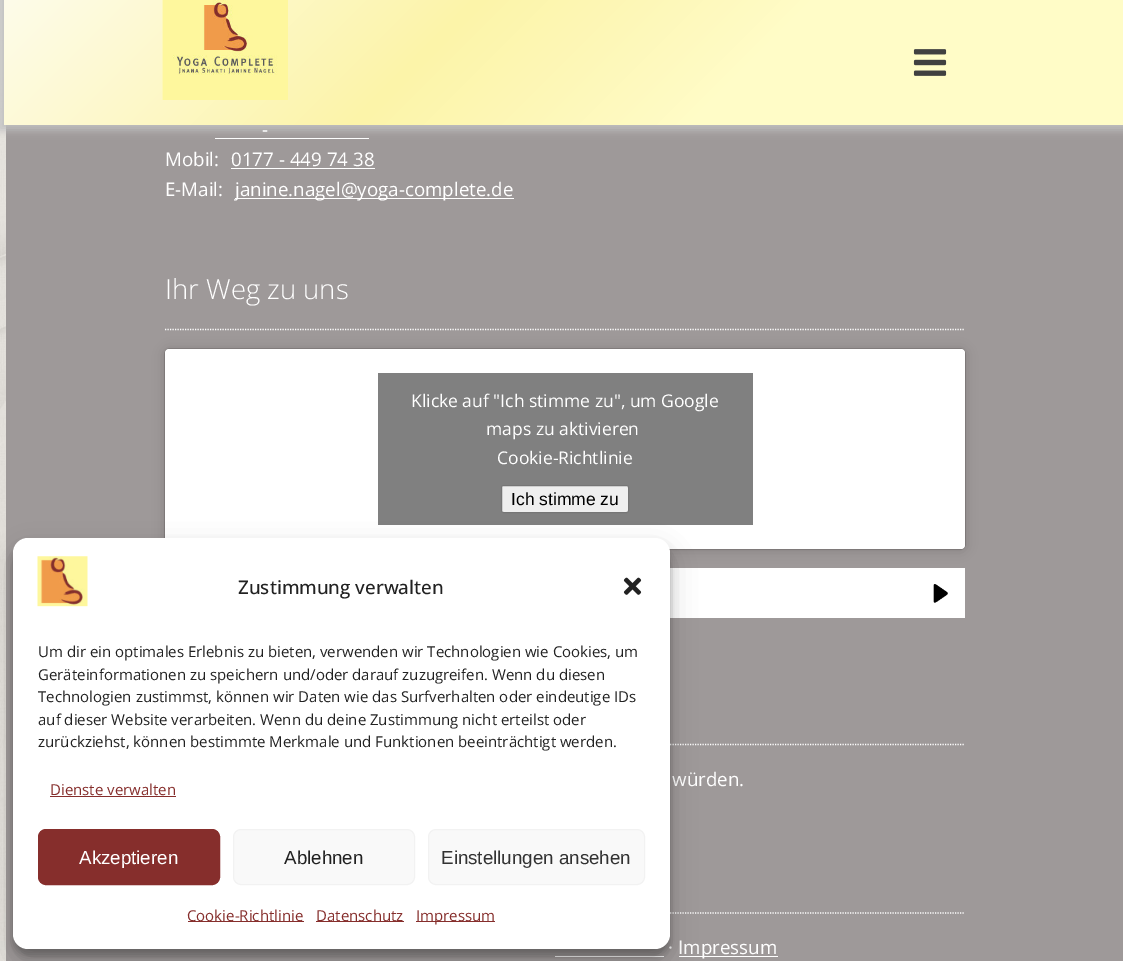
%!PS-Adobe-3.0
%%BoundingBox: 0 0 1123 961
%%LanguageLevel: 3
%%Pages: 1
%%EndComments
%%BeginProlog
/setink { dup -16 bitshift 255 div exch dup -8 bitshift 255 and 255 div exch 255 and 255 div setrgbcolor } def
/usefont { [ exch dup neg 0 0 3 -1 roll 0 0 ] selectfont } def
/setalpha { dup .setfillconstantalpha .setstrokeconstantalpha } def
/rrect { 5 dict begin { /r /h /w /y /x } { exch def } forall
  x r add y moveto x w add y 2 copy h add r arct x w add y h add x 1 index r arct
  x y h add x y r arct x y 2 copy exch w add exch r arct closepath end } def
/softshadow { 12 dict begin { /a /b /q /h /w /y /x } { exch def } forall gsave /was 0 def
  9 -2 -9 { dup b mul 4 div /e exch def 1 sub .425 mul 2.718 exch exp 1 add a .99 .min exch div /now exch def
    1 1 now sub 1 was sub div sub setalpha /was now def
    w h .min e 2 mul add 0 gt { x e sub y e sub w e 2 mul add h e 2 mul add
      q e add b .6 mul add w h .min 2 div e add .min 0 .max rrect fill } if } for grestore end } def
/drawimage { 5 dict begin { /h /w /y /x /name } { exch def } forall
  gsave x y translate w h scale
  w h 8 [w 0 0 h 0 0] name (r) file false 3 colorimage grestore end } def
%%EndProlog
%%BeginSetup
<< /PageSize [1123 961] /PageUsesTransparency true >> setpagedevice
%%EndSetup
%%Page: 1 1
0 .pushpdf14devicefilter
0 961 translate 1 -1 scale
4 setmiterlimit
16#FFFFFF setink
0 0 1123 961 rectfill
(img1.raw) 0 0 6 961 drawimage
16#9E9999 setink
6 125 1117 836 rectfill
16#FFFFFF setink
215 138 154 1 rectfill
16#BFBFBF setink
-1 -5 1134 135 0 4.5 1 softshadow
gsave 4 0 moveto 1123 0 lineto 1123 125 lineto 4 125 lineto closepath clip newpath
<< /ShadingType 2 /ColorSpace /DeviceRGB /Coords [253 -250 878 375] /Extend [true true] /Function << /FunctionType 3 /Domain [0 1] /Functions [<< /FunctionType 2 /Domain [0 1] /C0 [0.996 0.988 0.918] /C1 [0.988 0.957 0.663] /N 1 >> << /FunctionType 2 /Domain [0 1] /C0 [0.988 0.957 0.663] /C1 [1 0.988 0.78] /N 1 >> << /FunctionType 2 /Domain [0 1] /C0 [1 0.988 0.78] /C1 [1 0.988 0.78] /N 1 >>] /Bounds [0.38 0.65] /Encode [0 1 0 1 0 1] >> >> shfill grestore
(img2.raw) 162 0 126 100 drawimage
(img3.raw) 913 49 34 27 drawimage
16#FFFFFF setink
1.2 setlinewidth
[1.25 1.25] 0 setdash
165 913 moveto 965 913 lineto stroke
/OpenSans-Regular 18.75 usefont
[
    [(-) 262 136]
    [(Mobil:) 165 166]
    [(0177 - 449 74 38) 231 166]
] { aload pop moveto show } forall
231 168 144 1 rectfill
165 196 moveto (E-Mail:) show
235 198 279 1 rectfill
235 196 moveto (janine.nagel@yoga-complete.de) show
165 329.5 moveto 965 329.5 lineto stroke
/OpenSans-Light 27.5 usefont
165 299 moveto (Ihr Weg zu uns) show
16#000000 setink
165 350 800 200 4 6 0.15 softshadow
165 349 800 200 4 0.5 0.5 softshadow
16#FFFFFF setink
165 349 800 200 4 rrect fill
16#808080 setink
378 373 375 152 rectfill
/OpenSans-Regular 17.5 usefont
16#FFFFFF setink
[
    [(Klicke auf "Ich stimme zu", um Google) 411 407]
    [(maps zu aktivieren) 486 435]
    [(Cookie-Richtlinie) 497 464]
] { aload pop moveto show } forall
16#EFEFEF setink
501.5 485.5 127 27 2 rrect gsave fill grestore
16#767676 setink
1 setlinewidth
[] 0 setdash
stroke
/LiberationSans-Regular 17.5 usefont
16#000000 setink
511 505 moveto (Ich stimme zu) show
16#FFFFFF setink
670 568 295 50 rectfill
(img4.raw) 933 584 15 19 drawimage
1.2 setlinewidth
[1.25 1.25] 0 setdash
165 744.5 moveto 965 744.5 lineto stroke
/OpenSans-Regular 18.75 usefont
672 786 moveto (würden.) show
668 954 moveto (·) show
679 956 99 1 rectfill
678 954 moveto (Impressum) show
555 956 109 1 rectfill
16#000000 setink
13 545 657 411 15 4 0.23 softshadow
13 550 657 411 15 12.5 0.19 softshadow
16#FFFFFF setink
13 538 657 411 15 rrect fill
(img5.raw) 37 556 51 51 drawimage
/OpenSans-Medium 18.75 usefont
16#222222 setink
238 594 moveto (Zustimmung verwalten) show
(img6.raw) 623 577 19 18 drawimage
/OpenSans-Regular 15 usefont
[
    [(Um dir ein optimales Erlebnis zu bieten, verwenden wir Technologien wie Cookies, um) 38 657]
    [(Geräteinformationen zu speichern und/oder darauf zuzugreifen. Wenn du diesen) 38 680]
    [(Technologien zustimmst, können wir Daten wie das Surfverhalten oder eindeutige IDs) 38 702]
    [(auf dieser Website verarbeiten. Wenn du deine Zustimmung nicht erteilst oder) 38 725]
    [(zurückziehst, können bestimmte Merkmale und Funktionen beeinträchtigt werden.) 38 747]
] { aload pop moveto show } forall
16#862E2C setink
50 795 moveto (Dienste verwalten) show
50 796 126 1 rectfill
38.5 829.5 181 55 7.5 rrect gsave fill grestore
1 setlinewidth
[] 0 setdash
stroke
/LiberationSans-Regular 18.75 usefont
16#FFFFFF setink
79 864 moveto (Akzeptieren) show
16#F9F9F9 setink
233.5 829.5 181 55 7.5 rrect gsave fill grestore
16#F2F2F2 setink
stroke
16#222222 setink
284 864 moveto (Ablehnen) show
16#F9F9F9 setink
428.5 829.5 216 55 7.5 rrect gsave fill grestore
16#F2F2F2 setink
stroke
16#333333 setink
441 864 moveto (Einstellungen ansehen) show
16#862E2C setink
188 921 116 1 rectfill
/OpenSans-Regular 15 usefont
187 921 moveto (Cookie-Richtlinie) show
316 921 88 1 rectfill
316 921 moveto (Datenschutz) show
416 921 79 1 rectfill
416 921 moveto (Impressum) show
.poppdf14devicefilter showpage
%%EOF
